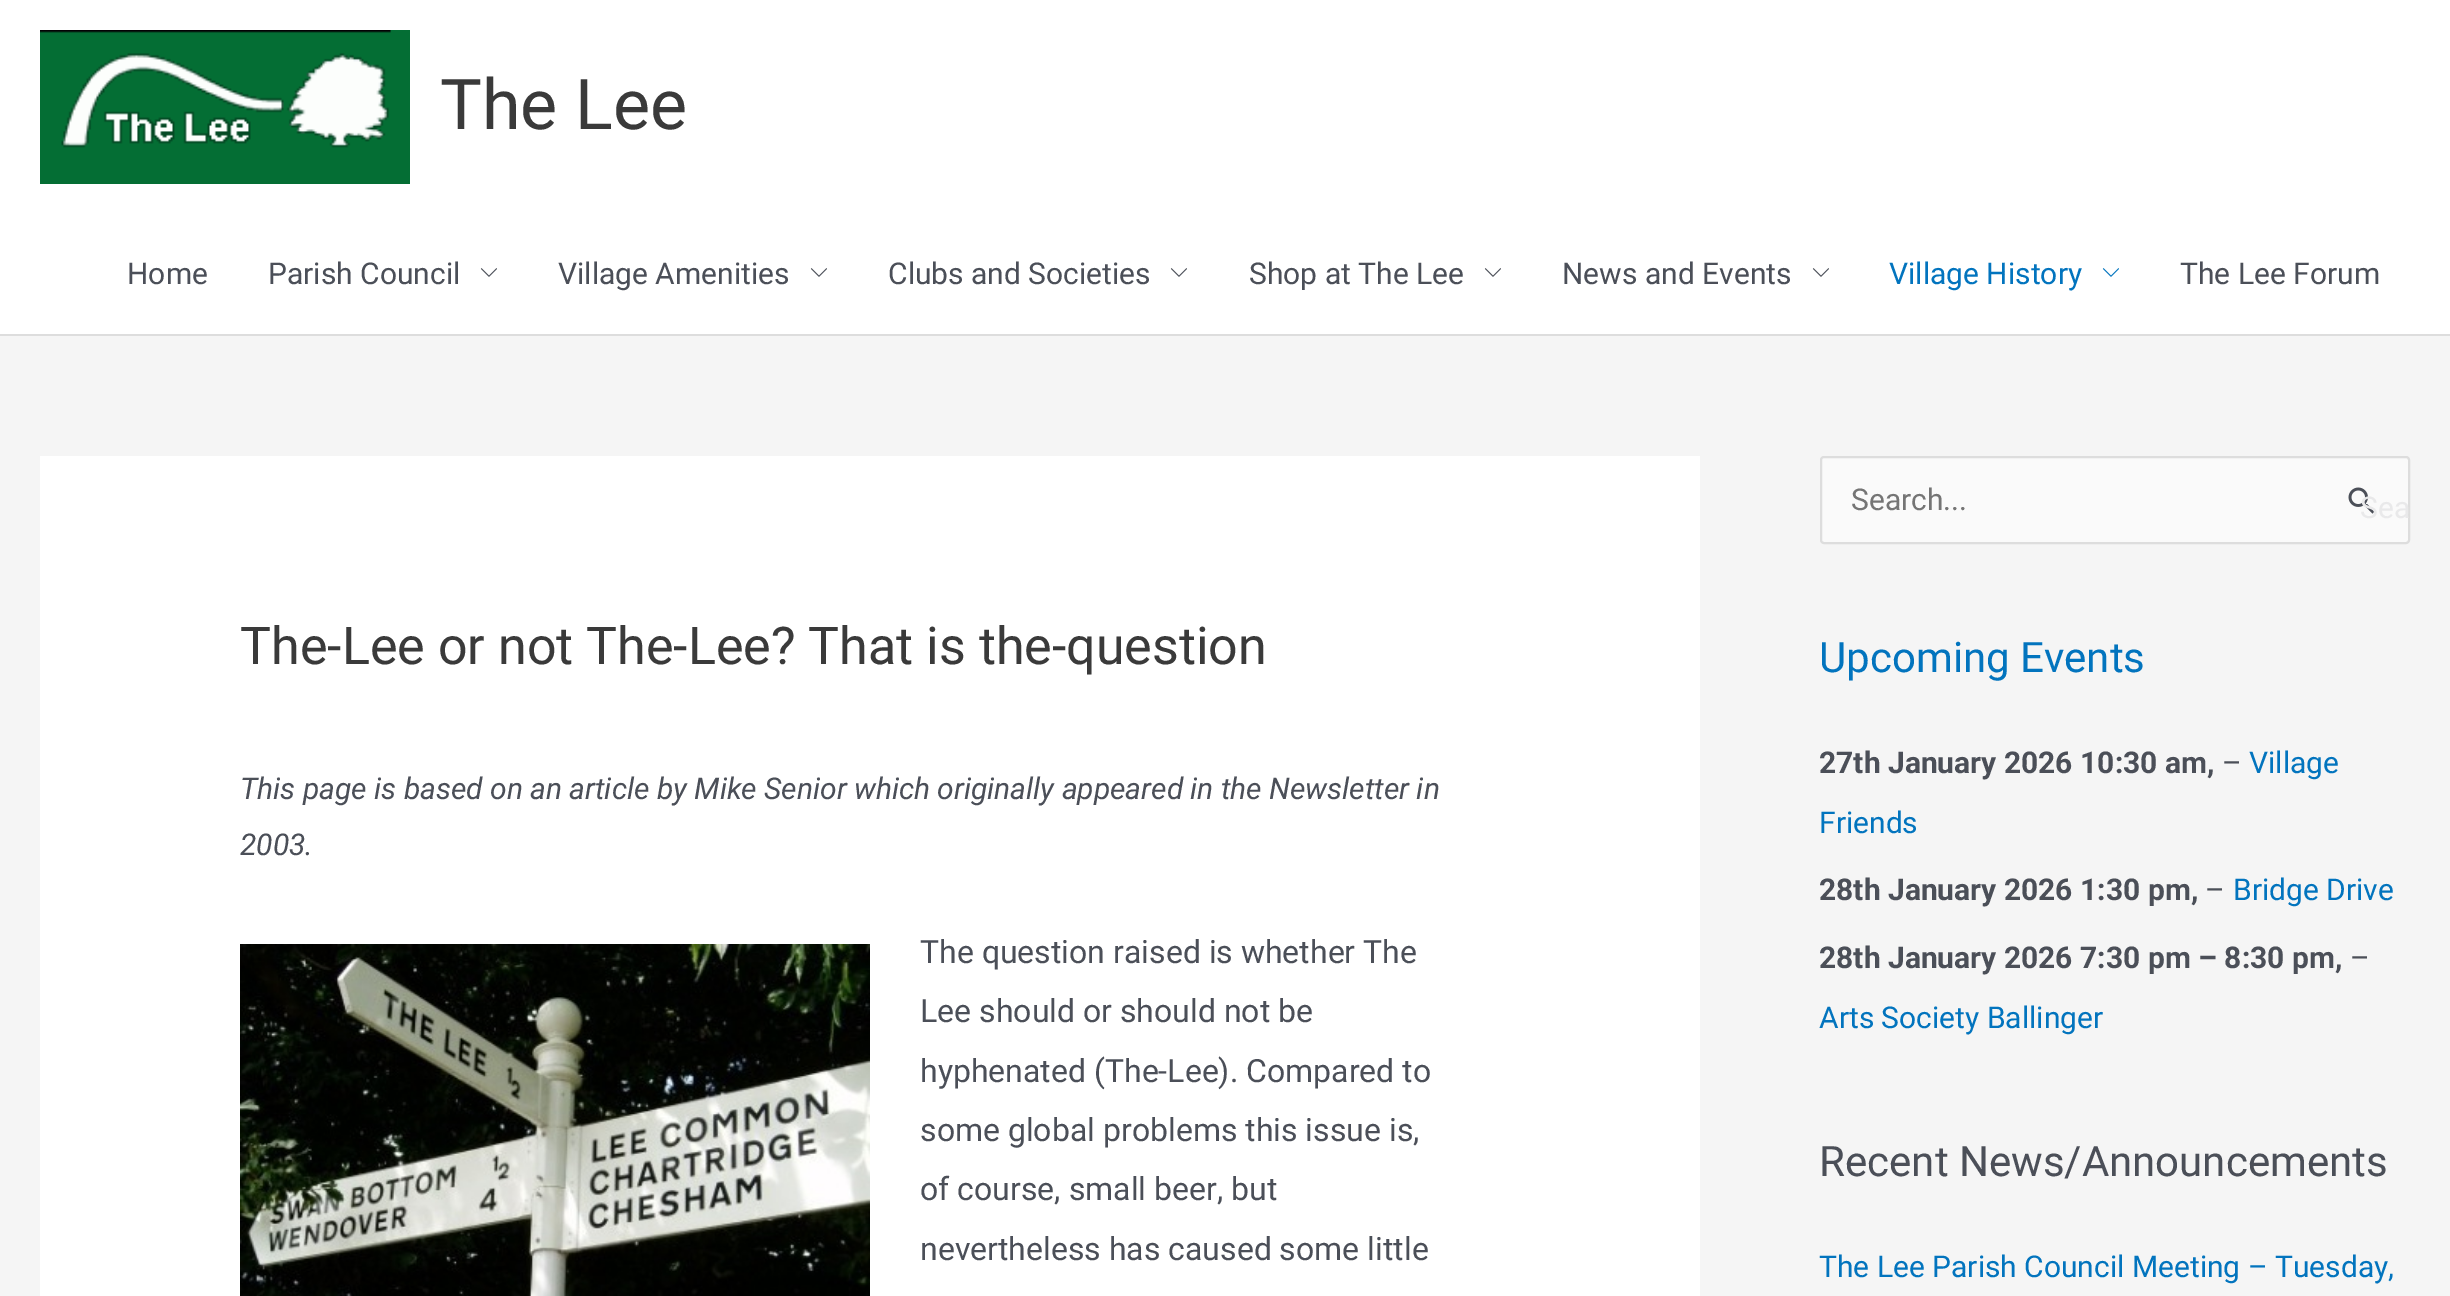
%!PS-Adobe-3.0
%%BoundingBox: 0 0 2450 1296
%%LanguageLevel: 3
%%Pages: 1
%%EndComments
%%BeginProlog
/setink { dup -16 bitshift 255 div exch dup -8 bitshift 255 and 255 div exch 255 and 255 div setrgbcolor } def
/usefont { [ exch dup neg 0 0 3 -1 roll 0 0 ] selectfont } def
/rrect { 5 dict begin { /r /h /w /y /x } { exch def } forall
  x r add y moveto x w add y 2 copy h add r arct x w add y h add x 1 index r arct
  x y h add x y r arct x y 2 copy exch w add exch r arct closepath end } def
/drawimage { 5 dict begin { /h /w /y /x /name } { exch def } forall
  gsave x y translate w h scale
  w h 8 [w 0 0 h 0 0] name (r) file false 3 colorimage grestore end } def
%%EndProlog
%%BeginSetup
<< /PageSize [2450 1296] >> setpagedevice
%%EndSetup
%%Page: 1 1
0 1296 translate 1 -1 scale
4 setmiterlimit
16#F5F5F5 setink
0 0 2450 1296 rectfill
16#FFFFFF setink
0 0 2450 334 rectfill
16#DDDDDD setink
0 334 2450 2 rectfill
(img1.raw) 40 30 370 154 drawimage
/Roboto-Regular 70 usefont
16#3A3A3A setink
440 129 moveto (The Lee) show
/Roboto-Regular 30 usefont
16#4B4F58 setink
127 284 moveto (Home) show
268 284 moveto (Parish Council) show
(img2.raw) 480 268 17 9 drawimage
558 284 moveto (Village Amenities) show
(img2.raw) 810 268 17 9 drawimage
888 284 moveto (Clubs and Societies) show
(img2.raw) 1170 268 17 9 drawimage
1249 284 moveto (Shop at The Lee) show
(img2.raw) 1484 268 17 9 drawimage
1562 284 moveto (News and Events) show
(img2.raw) 1812 268 17 9 drawimage
16#0274BE setink
1889 284 moveto (Village History) show
(img3.raw) 2102 268 17 9 drawimage
16#4B4F58 setink
2180 284 moveto (The Lee Forum) show
16#FFFFFF setink
40 456 1660 840 rectfill
/Roboto-Regular 52 usefont
16#3A3A3A setink
240 664 moveto (The-Lee or not The-Lee? That is the-question) show
/Roboto-Italic 30 usefont
16#4B4F58 setink
240 799 moveto (This page is based on an article by Mike Senior which originally appeared in the Newsletter in) show
240 855 moveto (2003.) show
(img4.raw) 240 944 630 352 drawimage
/Roboto-Regular 32 usefont
[
    [(The question raised is whether The) 920 963]
    [(Lee should or should not be) 920 1022]
    [(hyphenated \(The-Lee\). Compared to) 920 1082]
    [(some global problems this issue is,) 920 1141]
    [(of course, small beer, but) 920 1200]
    [(nevertheless has caused some little) 920 1260]
] { aload pop moveto show } forall
16#FAFAFA setink
1821 457 588 86 3 rrect gsave fill grestore
16#DDDDDD setink
2 setlinewidth
stroke
/Roboto-Regular 30 usefont
16#757575 setink
1851 510 moveto (Search...) show
(img5.raw) 2348 487 27 27 drawimage
16#E9E9EA setink
2360 518 moveto (Sea) show
/Roboto-Regular 42 usefont
16#0274BE setink
1819 672 moveto (Upcoming Events) show
/Roboto-Bold 30 usefont
16#4B4F58 setink
1819 773 moveto (27th January 2026 10:30 am,) show
/Roboto-Regular 30 usefont
2222 773 moveto (–) show
16#0274BE setink
2249 773 moveto (Village) show
1819 833 moveto (Friends) show
/Roboto-Bold 30 usefont
16#4B4F58 setink
1819 900 moveto (28th January 2026 1:30 pm,) show
/Roboto-Regular 30 usefont
2205 900 moveto (–) show
16#0274BE setink
2233 900 moveto (Bridge Drive) show
/Roboto-Bold 30 usefont
16#4B4F58 setink
1819 968 moveto (28th January 2026 7:30 pm – 8:30 pm,) show
/Roboto-Regular 30 usefont
2350 968 moveto (–) show
16#0274BE setink
1819 1028 moveto (Arts Society Ballinger) show
/Roboto-Regular 42 usefont
16#4B4F58 setink
1819 1176 moveto (Recent News/Announcements) show
/Roboto-Regular 30 usefont
16#0274BE setink
1819 1277 moveto (The Lee Parish Council Meeting – Tuesday,) show
showpage
%%EOF
